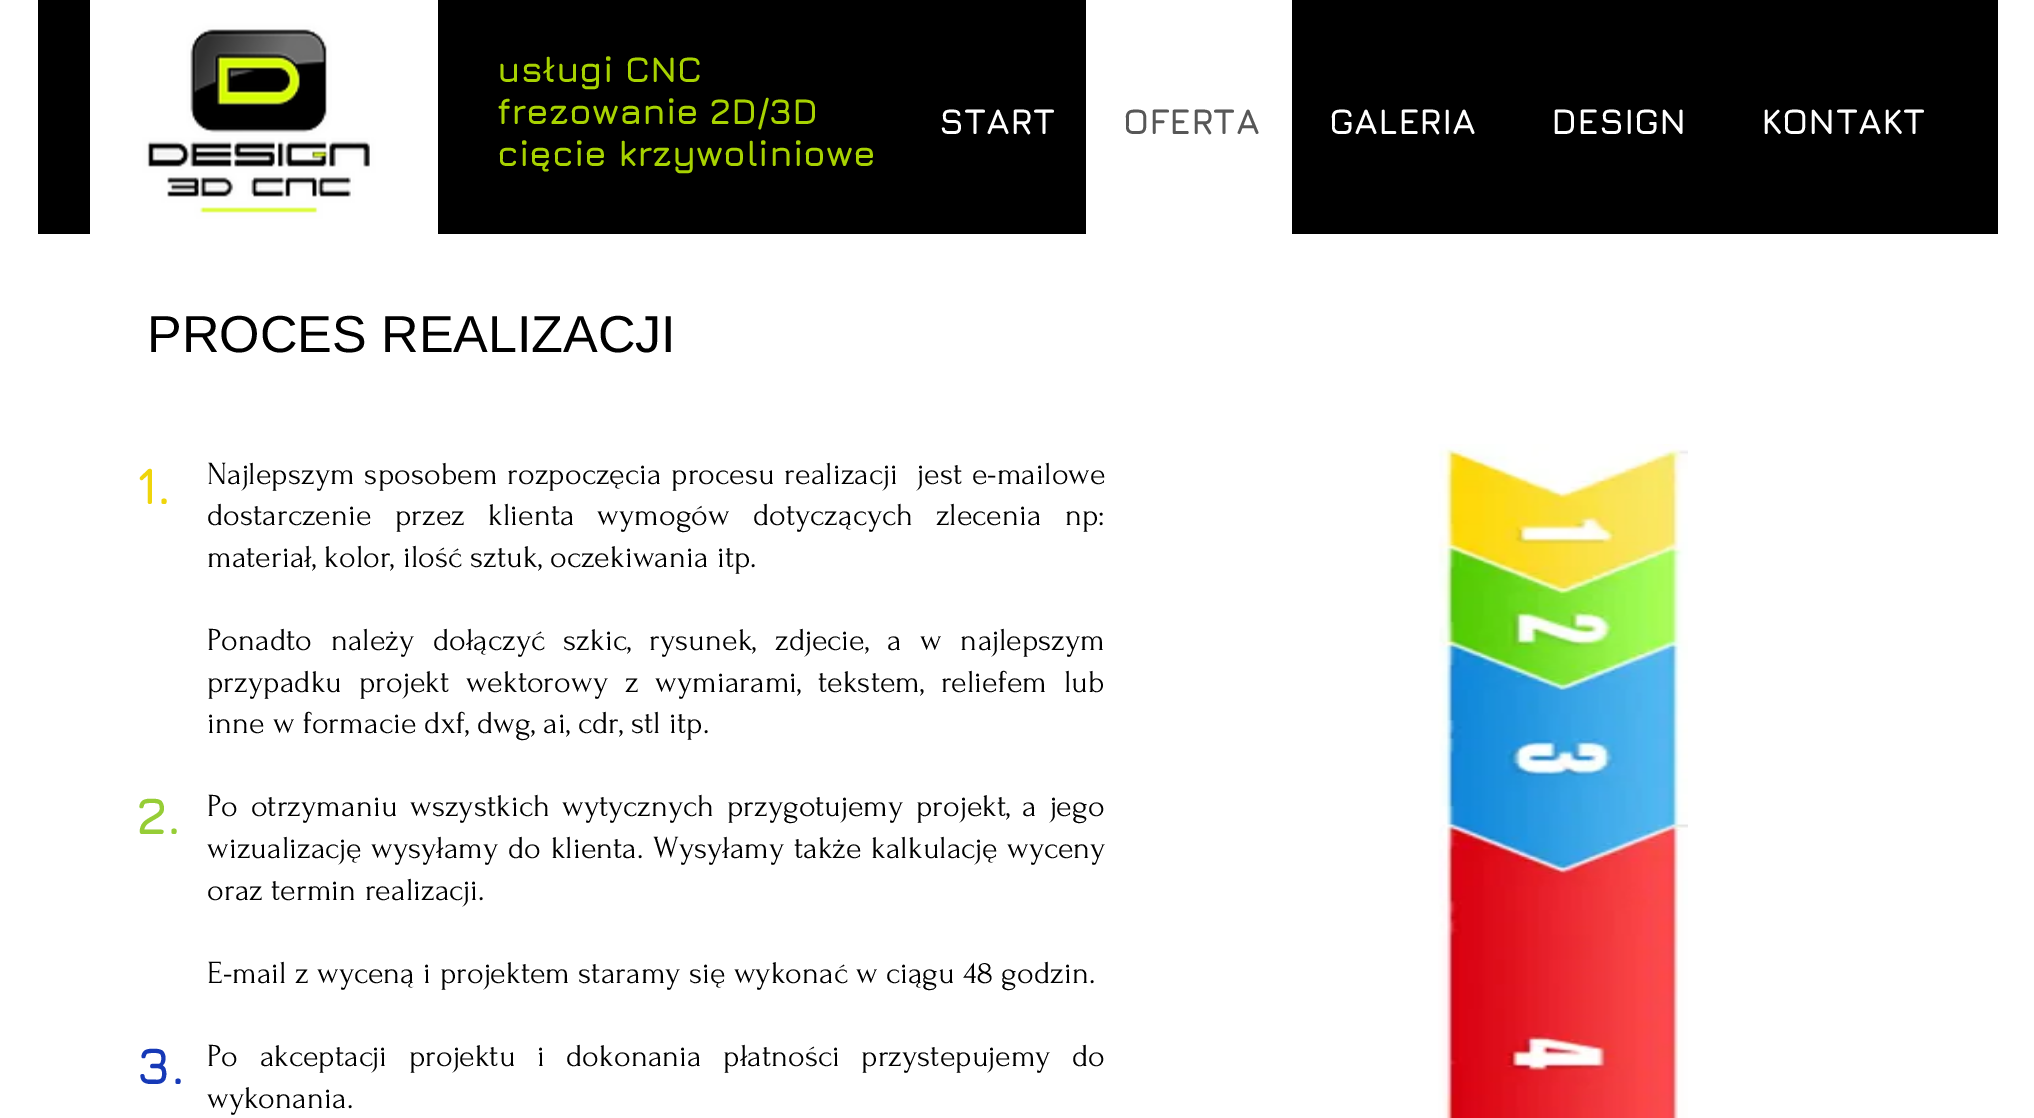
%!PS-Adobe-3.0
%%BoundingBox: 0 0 2034 1118
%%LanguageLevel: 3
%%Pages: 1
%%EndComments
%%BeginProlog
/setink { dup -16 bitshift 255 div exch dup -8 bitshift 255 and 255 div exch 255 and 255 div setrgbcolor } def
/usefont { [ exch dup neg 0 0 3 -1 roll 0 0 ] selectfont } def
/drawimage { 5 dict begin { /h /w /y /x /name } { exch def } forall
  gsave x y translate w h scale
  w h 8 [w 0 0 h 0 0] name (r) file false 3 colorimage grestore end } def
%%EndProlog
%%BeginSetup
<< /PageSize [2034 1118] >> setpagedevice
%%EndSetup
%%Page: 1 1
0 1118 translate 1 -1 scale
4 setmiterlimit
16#FFFFFF setink
0 0 2034 1118 rectfill
16#000000 setink
38 0 1960 234 rectfill
(img1.raw) 90 0 348 234 drawimage
/Jura-Bold 36 usefont
16#A7D201 setink
[
    [(usługi CNC) 497 82]
    [(frezowanie 2D/3D) 497 124]
    [(cięcie krzywoliniowe) 497 166]
] { aload pop moveto show } forall
16#FFFFFF setink
939 134 moveto (START) show
1086 0 206 234 rectfill
16#575757 setink
1123 134 moveto (OFERTA) show
16#FFFFFF setink
[
    [(GALERIA) 1329 134]
    [(DESIGN) 1551 134]
    [(KONTAKT) 1761 134]
] { aload pop moveto show } forall
/LiberationSans-Regular 52 usefont
16#000000 setink
147 352 moveto (PROCES REALIZACJI) show
/Jura-Bold 52 usefont
16#EFD50B setink
137 504 moveto (1.) show
/Forum-Regular 32 usefont
16#000000 setink
207 484 moveto 1.5 0 32 (Najlepszym sposobem rozpoczęcia procesu realizacji  jest e-mailowe) widthshow
207 525 moveto 14.75 0 32 (dostarczenie przez klienta wymogów dotyczących zlecenia np:) widthshow
207 567 moveto (materiał, kolor, ilość sztuk, oczekiwania itp.) show
207 650 moveto 10.25 0 32 (Ponadto należy dołączyć szkic, rysunek, zdjecie, a w najlepszym) widthshow
207 692 moveto 8.5 0 32 (przypadku projekt wektorowy z wymiarami, tekstem, reliefem lub) widthshow
207 733 moveto (inne w formacie dxf, dwg, ai, cdr, stl itp.) show
207 816 moveto 4.25 0 32 (Po otrzymaniu wszystkich wytycznych przygotujemy projekt, a jego) widthshow
207 858 moveto 1.25 0 32 (wizualizację wysyłamy do klienta. Wysyłamy także kalkulację wyceny) widthshow
207 900 moveto (oraz termin realizacji.) show
207 983 moveto (E-mail z wyceną i projektem staramy się wykonać w ciągu 48 godzin.) show
207 1066 moveto 13 0 32 (Po akceptacji projektu i dokonania płatności przystepujemy do) widthshow
207 1108 moveto (wykonania.) show
(img2.raw) 1438 444 250 674 drawimage
/Jura-Bold 52 usefont
16#96CD36 setink
137 834 moveto (2.) show
16#1639B7 setink
137 1084 moveto (3.) show
showpage
%%EOF
